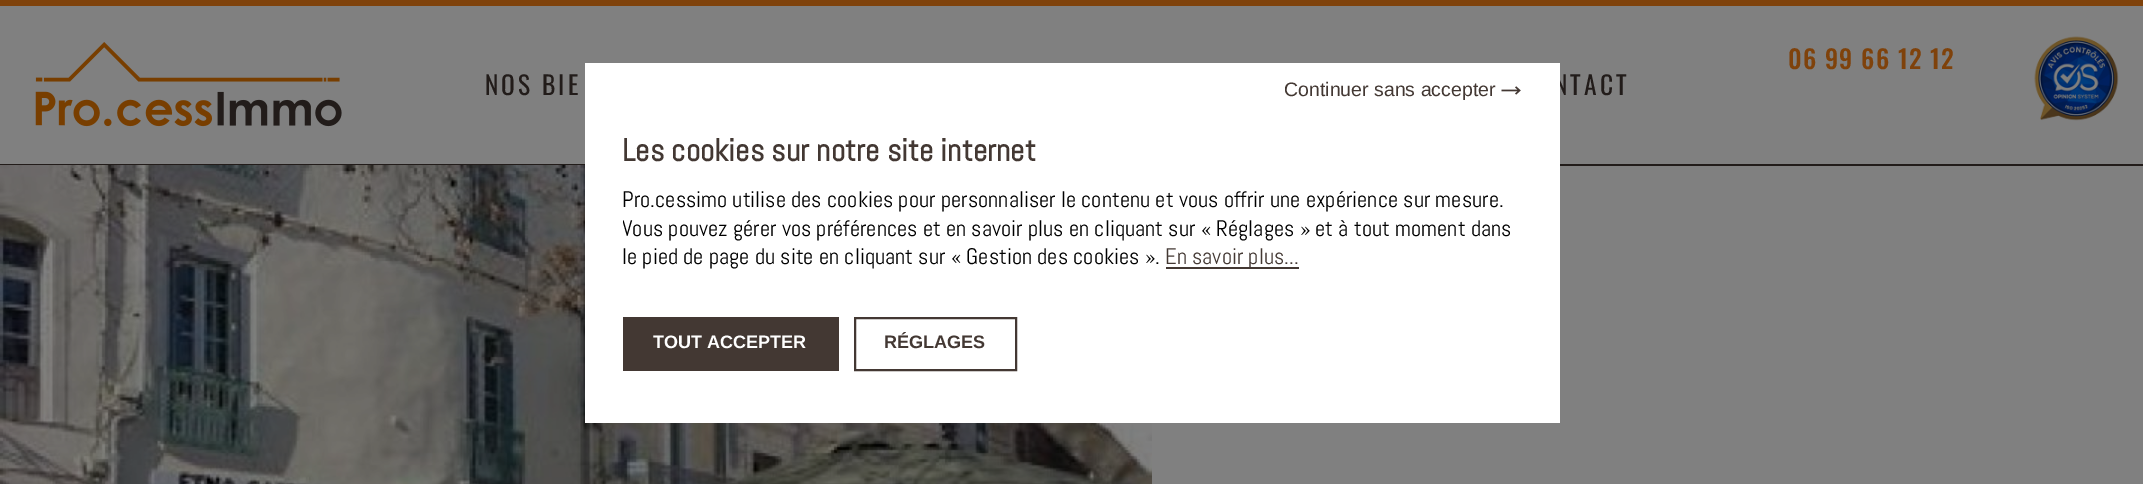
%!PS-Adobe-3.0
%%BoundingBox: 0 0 2143 484
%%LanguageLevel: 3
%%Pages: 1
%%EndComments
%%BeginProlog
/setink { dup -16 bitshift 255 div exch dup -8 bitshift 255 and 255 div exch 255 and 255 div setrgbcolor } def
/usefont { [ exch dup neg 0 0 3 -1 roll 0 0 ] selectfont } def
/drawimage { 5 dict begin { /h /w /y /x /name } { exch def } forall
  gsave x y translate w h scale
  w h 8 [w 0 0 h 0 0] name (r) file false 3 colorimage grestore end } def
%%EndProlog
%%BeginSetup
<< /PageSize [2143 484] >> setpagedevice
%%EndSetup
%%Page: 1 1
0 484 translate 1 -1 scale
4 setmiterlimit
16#808080 setink
0 0 2143 484 rectfill
16#7F420B setink
0 0 2143 6 rectfill
16#221C1A setink
0 164 2143 2 rectfill
(img1.raw) 35 42 307 85 drawimage
/Oswald-Medium 25.5 usefont
16#7F420B setink
1788 69 moveto 1.25 0 (06 99 66 12 12) ashow
(img2.raw) 2034 36 85 85 drawimage
/Oswald-Regular 25.5 usefont
16#221C1A setink
485 95 moveto 3 0 (NOS BIE) ashow
1554 95 moveto 3 0 (NTACT) ashow
(img3.raw) 0 165 1152 319 drawimage
16#FFFFFF setink
585 63 975 360 rectfill
/LiberationSans-Regular 19.5 usefont
16#433833 setink
1284 96 moveto (Continuer sans accepter) show
(img4.raw) 1501 86 20 9 drawimage
/Abel-Bold 31.5 usefont
622 161 moveto (Les cookies sur notre site internet) show
/Abel-Regular 22.5 usefont
16#000000 setink
622 207 moveto (Pro.cessimo utilise des cookies pour personnaliser le contenu et vous offrir une expérience sur mesure.) show
gsave
623 131 900 141 rectclip
622 236 moveto (Vous pouvez gérer vos préférences et en savoir plus en cliquant sur « Réglages » et à tout moment dans) show
grestore
622 264 moveto (le pied de page du site en cliquant sur « Gestion des cookies ».) show
16#433833 setink
1166 267 133 2 rectfill
1165 264 moveto (En savoir plus...) show
623 317 216 54 rectfill
/LiberationSans-Bold 18 usefont
16#FFFFFF setink
653 348 moveto (TOUT ACCEPTER) show
16#433833 setink
2 setlinewidth
855 318 161 52 rectstroke
884 348 moveto (RÉGLAGES) show
showpage
%%EOF
